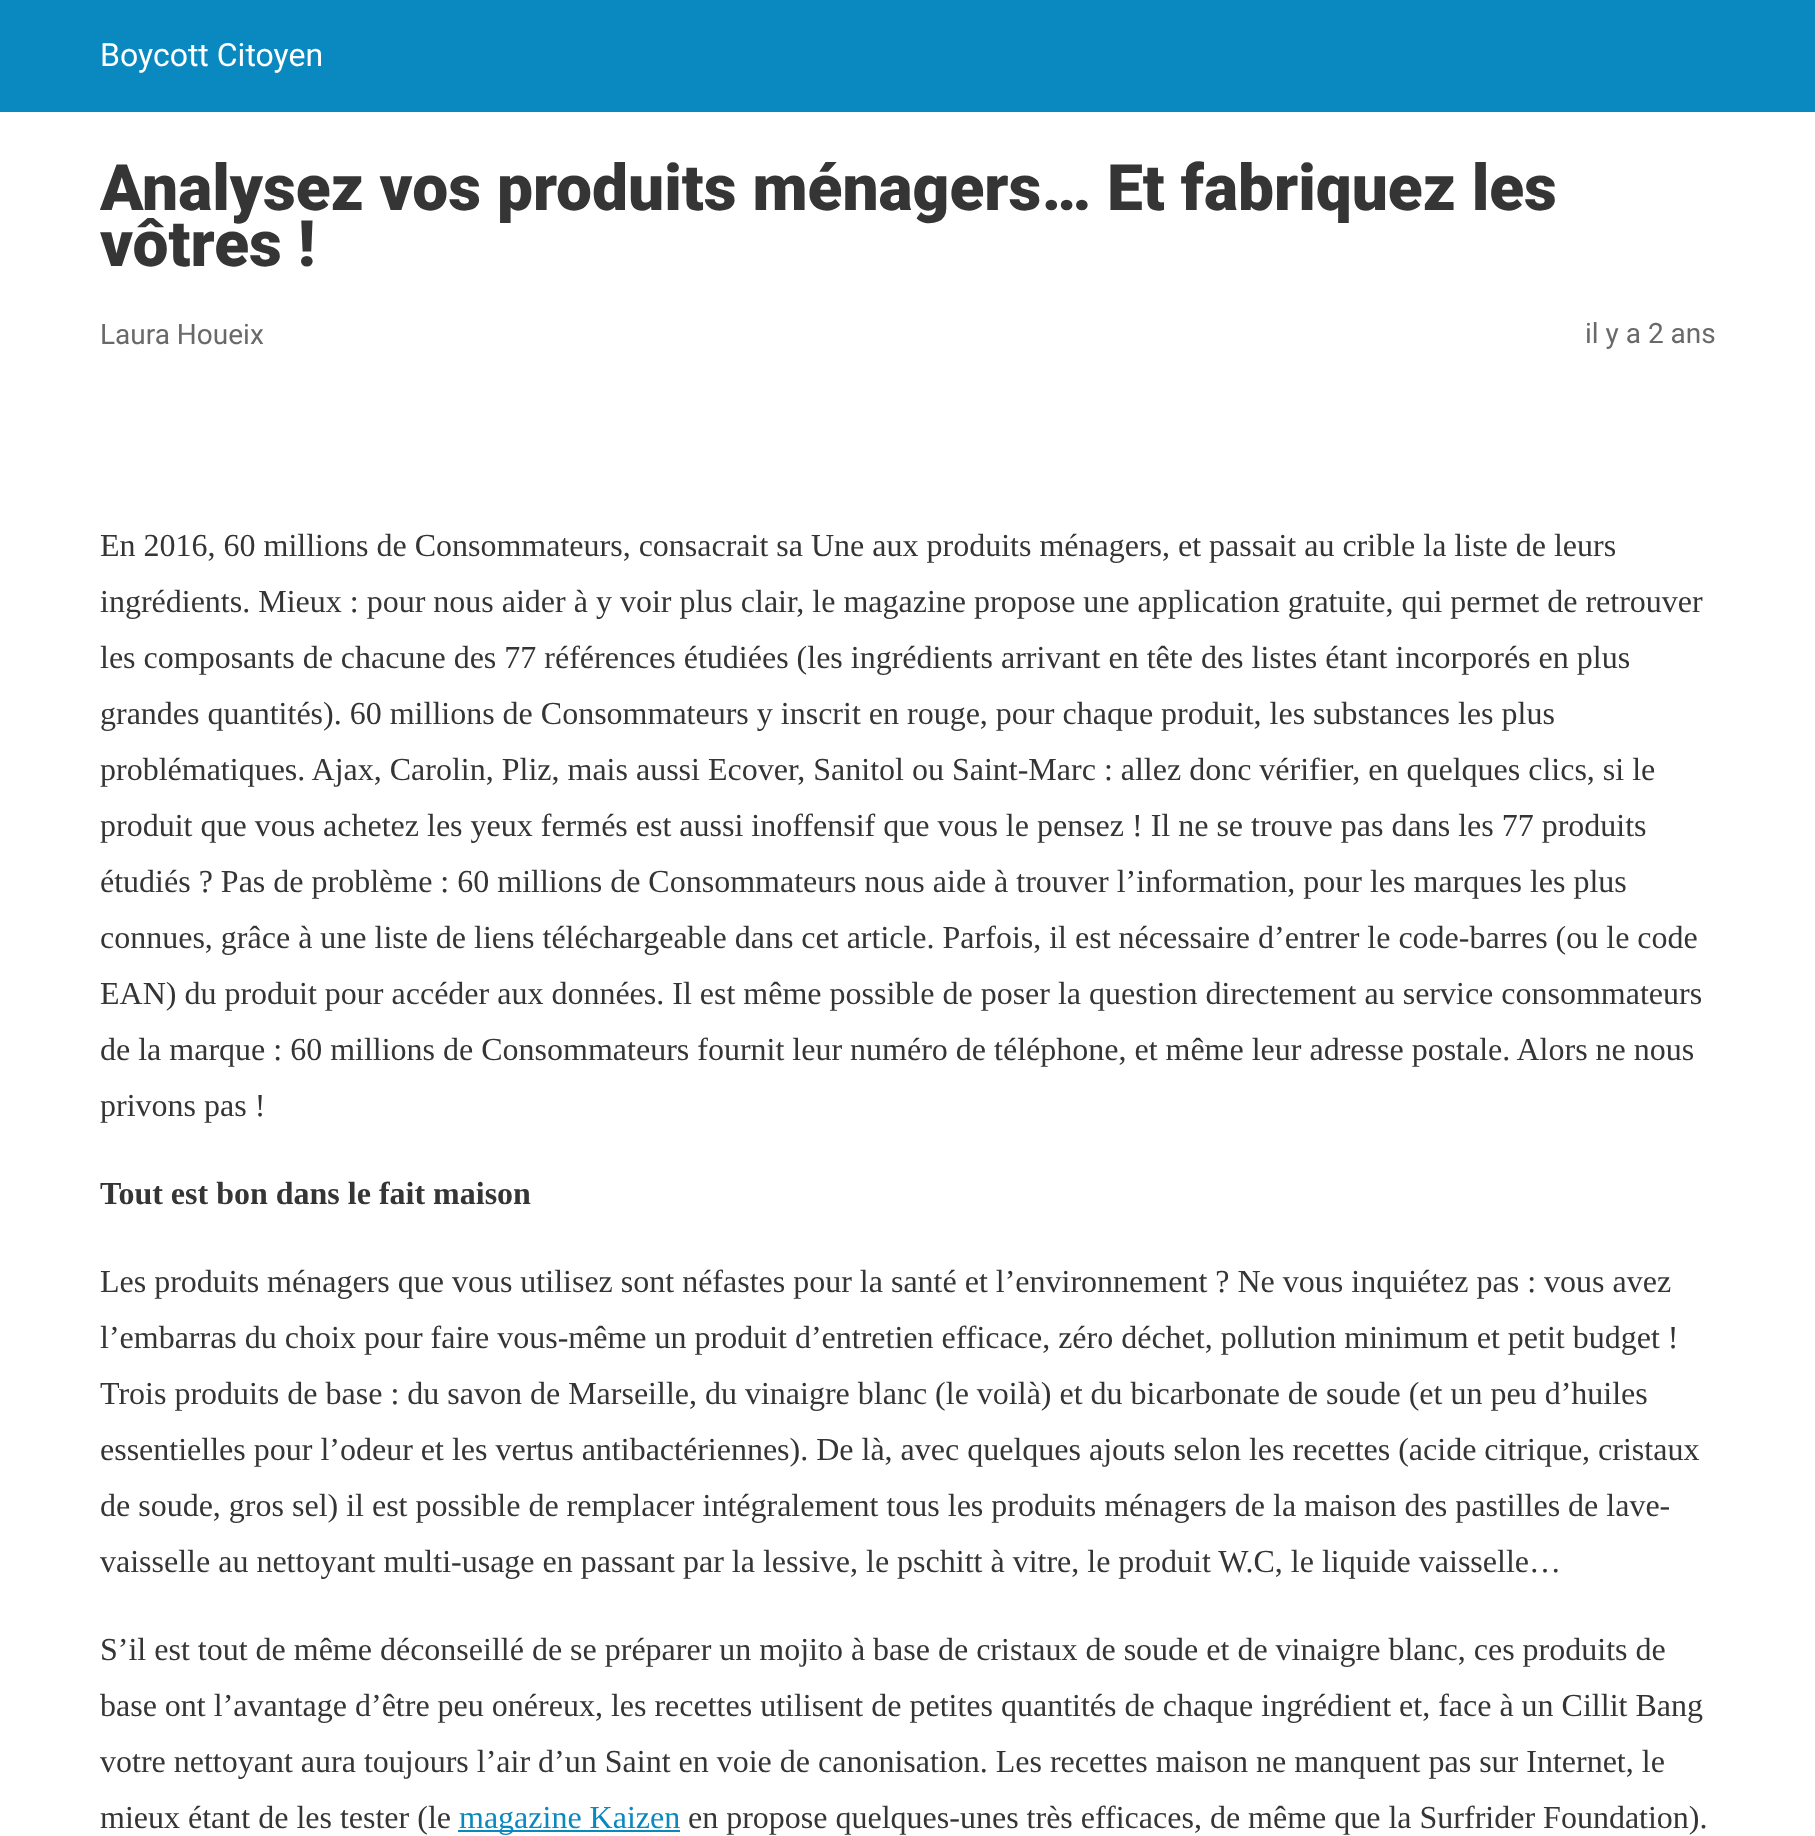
<?xml version="1.0" encoding="UTF-8"?>
<svg xmlns="http://www.w3.org/2000/svg" xmlns:xlink="http://www.w3.org/1999/xlink" width="1815" height="1836">
  <rect width="100%" height="100%" fill="#ffffff" />
  <rect width="1815" height="112" fill="#0a89c0" />
  <rect x="458" y="1830" width="222" height="2" fill="#0a89c0" />
  <text x="100" y="66" style="font-family: Roboto; font-size: 32px; fill: #ffffff">Boycott Citoyen</text>
  <text x="100" y="210" style="font-family: Roboto; font-size: 64px; font-weight: 900; fill: #353535">Analysez vos produits ménagers… Et fabriquez les</text>
  <text x="100" y="266" style="font-family: Roboto; font-size: 64px; font-weight: 900; fill: #353535">vôtres !</text>
  <text x="100" y="344" style="font-family: Roboto; font-size: 28px; fill: #696969">Laura Houeix</text>
  <text x="1585" y="343" style="font-family: Roboto; font-size: 28px; fill: #696969">il y a 2 ans</text>
  <text x="100" y="556" style="font-family: Liberation Serif; font-size: 32px; fill: #353535">En 2016, 60 millions de Consommateurs, consacrait sa Une aux produits ménagers, et passait au crible la liste de leurs</text>
  <text x="100" y="612" style="font-family: Liberation Serif; font-size: 32px; fill: #353535">ingrédients. Mieux : pour nous aider à y voir plus clair, le magazine propose une application gratuite, qui permet de retrouver</text>
  <text x="100" y="668" style="font-family: Liberation Serif; font-size: 32px; fill: #353535">les composants de chacune des 77 références étudiées (les ingrédients arrivant en tête des listes étant incorporés en plus</text>
  <text x="100" y="724" style="font-family: Liberation Serif; font-size: 32px; fill: #353535">grandes quantités). 60 millions de Consommateurs y inscrit en rouge, pour chaque produit, les substances les plus</text>
  <text x="100" y="780" style="font-family: Liberation Serif; font-size: 32px; fill: #353535">problématiques. Ajax, Carolin, Pliz, mais aussi Ecover, Sanitol ou Saint-Marc : allez donc vérifier, en quelques clics, si le</text>
  <text x="100" y="836" style="font-family: Liberation Serif; font-size: 32px; fill: #353535">produit que vous achetez les yeux fermés est aussi inoffensif que vous le pensez ! Il ne se trouve pas dans les 77 produits</text>
  <text x="100" y="892" style="font-family: Liberation Serif; font-size: 32px; fill: #353535">étudiés ? Pas de problème : 60 millions de Consommateurs nous aide à trouver l’information, pour les marques les plus</text>
  <text x="100" y="948" style="font-family: Liberation Serif; font-size: 32px; fill: #353535">connues, grâce à une liste de liens téléchargeable dans cet article. Parfois, il est nécessaire d’entrer le code-barres (ou le code</text>
  <text x="100" y="1004" style="font-family: Liberation Serif; font-size: 32px; fill: #353535">EAN) du produit pour accéder aux données. Il est même possible de poser la question directement au service consommateurs</text>
  <text x="100" y="1060" style="font-family: Liberation Serif; font-size: 32px; fill: #353535">de la marque : 60 millions de Consommateurs fournit leur numéro de téléphone, et même leur adresse postale. Alors ne nous</text>
  <text x="100" y="1116" style="font-family: Liberation Serif; font-size: 32px; fill: #353535">privons pas !</text>
  <text x="100" y="1204" style="font-family: Liberation Serif; font-size: 32px; font-weight: bold; fill: #353535">Tout est bon dans le fait maison</text>
  <text x="100" y="1292" style="font-family: Liberation Serif; font-size: 32px; fill: #353535">Les produits ménagers que vous utilisez sont néfastes pour la santé et l’environnement ? Ne vous inquiétez pas : vous avez</text>
  <text x="100" y="1348" style="font-family: Liberation Serif; font-size: 32px; fill: #353535">l’embarras du choix pour faire vous-même un produit d’entretien efficace, zéro déchet, pollution minimum et petit budget !</text>
  <text x="100" y="1404" style="font-family: Liberation Serif; font-size: 32px; fill: #353535">Trois produits de base : du savon de Marseille, du vinaigre blanc (le voilà) et du bicarbonate de soude (et un peu d’huiles</text>
  <text x="100" y="1460" style="font-family: Liberation Serif; font-size: 32px; fill: #353535">essentielles pour l’odeur et les vertus antibactériennes). De là, avec quelques ajouts selon les recettes (acide citrique, cristaux</text>
  <text x="100" y="1516" style="font-family: Liberation Serif; font-size: 32px; fill: #353535">de soude, gros sel) il est possible de remplacer intégralement tous les produits ménagers de la maison des pastilles de lave-</text>
  <text x="100" y="1572" style="font-family: Liberation Serif; font-size: 32px; fill: #353535">vaisselle au nettoyant multi-usage en passant par la lessive, le pschitt à vitre, le produit W.C, le liquide vaisselle…</text>
  <text x="100" y="1660" style="font-family: Liberation Serif; font-size: 32px; fill: #353535">S’il est tout de même déconseillé de se préparer un mojito à base de cristaux de soude et de vinaigre blanc, ces produits de</text>
  <text x="100" y="1716" style="font-family: Liberation Serif; font-size: 32px; fill: #353535">base ont l’avantage d’être peu onéreux, les recettes utilisent de petites quantités de chaque ingrédient et, face à un Cillit Bang</text>
  <text x="100" y="1772" style="font-family: Liberation Serif; font-size: 32px; fill: #353535">votre nettoyant aura toujours l’air d’un Saint en voie de canonisation. Les recettes maison ne manquent pas sur Internet, le</text>
  <text x="100" y="1828" style="font-family: Liberation Serif; font-size: 32px; fill: #353535">mieux étant de les tester (le</text>
  <text x="459" y="1828" style="font-family: Liberation Serif; font-size: 32px; fill: #0a89c0">magazine Kaizen</text>
  <text x="688" y="1828" style="font-family: Liberation Serif; font-size: 32px; fill: #353535">en propose quelques-unes très efficaces, de même que la Surfrider Foundation).</text>
</svg>
